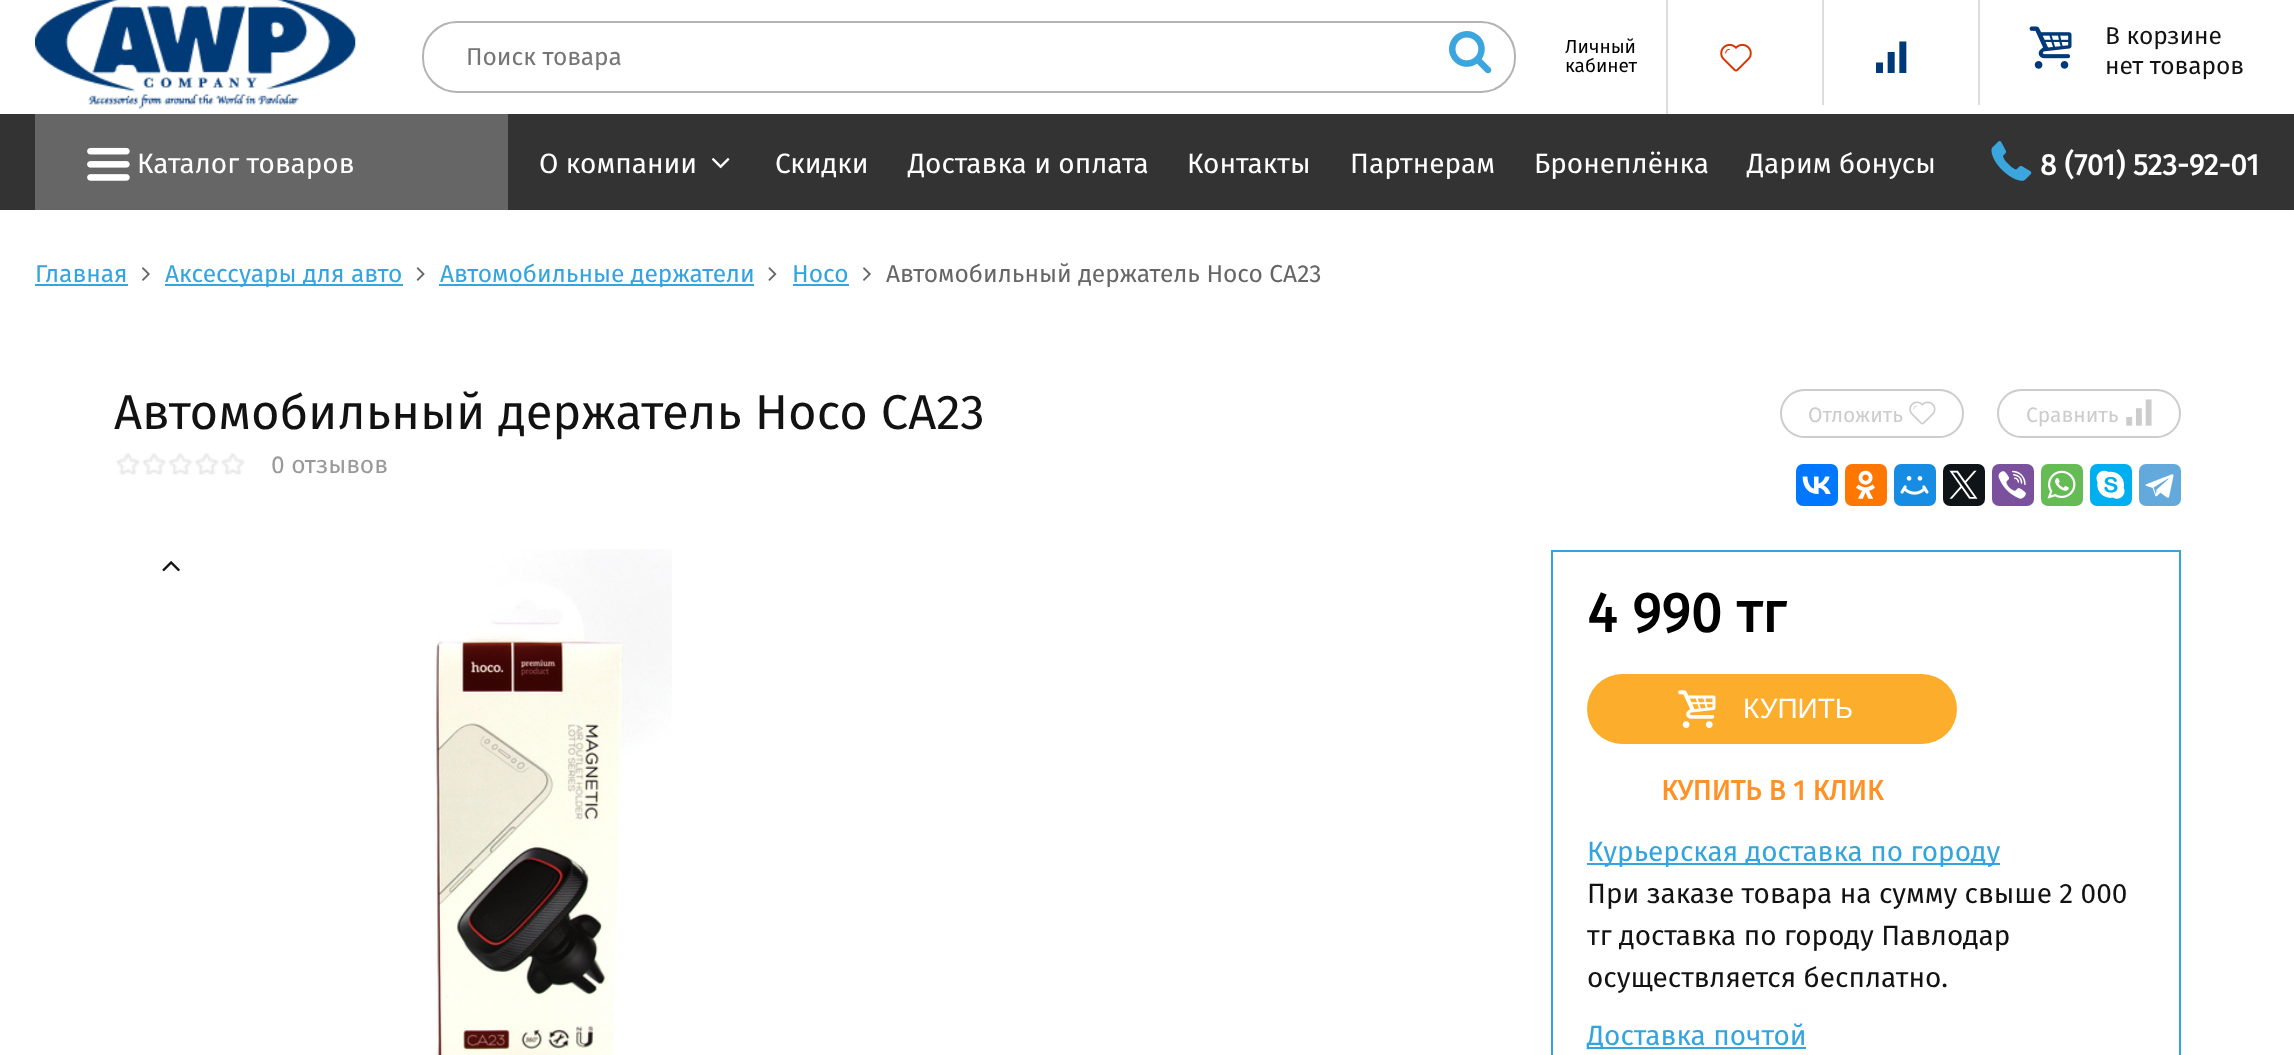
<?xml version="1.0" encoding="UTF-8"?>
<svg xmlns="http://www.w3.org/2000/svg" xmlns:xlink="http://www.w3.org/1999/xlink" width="2294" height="1055">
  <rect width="100%" height="100%" fill="#ffffff" />
  <image x="35" y="0" width="321" height="109" xlink:href="image1.png" />
  <rect x="423" y="22" width="1092" height="70" rx="34" fill="none" stroke="#b3b3b3" stroke-width="2" />
  <image x="1449" y="31" width="43" height="43" xlink:href="image2.png" />
  <rect x="1666" width="2" height="114" fill="#dddddd" />
  <rect x="1822" width="2" height="105" fill="#dddddd" />
  <image x="1720" y="43" width="32" height="29" xlink:href="image3.png" />
  <rect x="1978" width="2" height="105" fill="#dddddd" />
  <image x="1876" y="41" width="31" height="32" xlink:href="image4.png" />
  <image x="2029" y="26" width="43" height="43" xlink:href="image5.png" />
  <rect y="114" width="2294" height="96" fill="#333333" />
  <rect x="35" y="114" width="473" height="96" fill="#666666" />
  <image x="87" y="147" width="43" height="34" xlink:href="image6.png" />
  <image x="711" y="158" width="19" height="11" xlink:href="image7.png" />
  <image x="1991" y="141" width="41" height="40" xlink:href="image8.png" />
  <rect x="35" y="284" width="93" height="2" fill="#33a5df" />
  <image x="142" y="267" width="8" height="14" xlink:href="image9.png" />
  <rect x="165" y="284" width="238" height="2" fill="#33a5df" />
  <image x="416" y="267" width="9" height="14" xlink:href="image10.png" />
  <rect x="439" y="284" width="315" height="2" fill="#33a5df" />
  <image x="768" y="267" width="9" height="14" xlink:href="image11.png" />
  <rect x="793" y="284" width="56" height="2" fill="#33a5df" />
  <image x="863" y="267" width="8" height="14" xlink:href="image9.png" />
  <image x="116" y="453" width="129" height="22" xlink:href="image12.png" />
  <rect x="1781" y="390" width="182" height="47" rx="23.5" fill="none" stroke="#cccccc" stroke-width="2" />
  <image x="1909" y="401" width="27" height="24" xlink:href="image13.png" />
  <rect x="1998" y="390" width="182" height="47" rx="23.5" fill="none" stroke="#cccccc" stroke-width="2" />
  <image x="2126" y="399" width="26" height="27" xlink:href="image14.png" />
  <rect x="1796" y="464" width="42" height="42" rx="7" fill="#0077ff" />
  <image x="1802" y="476" width="29" height="18" xlink:href="image15.png" />
  <rect x="1845" y="464" width="42" height="42" rx="7" fill="#ff7700" />
  <image x="1856" y="470" width="19" height="29" xlink:href="image16.png" />
  <rect x="1894" y="464" width="42" height="42" rx="7" fill="#168de2" />
  <image x="1900" y="476" width="29" height="19" xlink:href="image17.png" />
  <rect x="1943" y="464" width="42" height="42" rx="7" fill="#0f1419" />
  <image x="1949" y="470" width="29" height="29" xlink:href="image18.png" />
  <rect x="1992" y="464" width="42" height="42" rx="7" fill="#7b519d" />
  <image x="1998" y="470" width="28" height="29" xlink:href="image19.png" />
  <rect x="2041" y="464" width="42" height="42" rx="7" fill="#65bc54" />
  <image x="2047" y="470" width="29" height="29" xlink:href="image20.png" />
  <rect x="2090" y="464" width="42" height="42" rx="7" fill="#00aff0" />
  <image x="2096" y="470" width="29" height="29" xlink:href="image21.png" />
  <rect x="2139" y="464" width="42" height="42" rx="7" fill="#64a9dc" />
  <image x="2145" y="474" width="29" height="24" xlink:href="image22.png" />
  <image x="162" y="561" width="18" height="11" xlink:href="image23.png" />
  <image x="431" y="549" width="241" height="506" xlink:href="image24.png" />
  <rect x="1552" y="551" width="628" height="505" fill="none" stroke="#33a4df" stroke-width="2" />
  <rect x="1587" y="674" width="370" height="70" rx="35" fill="#fcad2c" />
  <image x="1678" y="690" width="38" height="38" xlink:href="image25.png" />
  <rect x="1587" y="863" width="413" height="2" fill="#33a4df" />
  <rect x="1587" y="1047" width="219" height="2" fill="#33a4df" />
  <text x="466" y="65" style="font-family: Fira Sans; font-size: 24.5px; fill: #757575">Поиск товара</text>
  <text x="1565" y="53" style="font-family: Fira Sans; font-size: 19px; fill: #000000">Личный</text>
  <text x="1565" y="72" style="font-family: Fira Sans; font-size: 19px; fill: #000000">кабинет</text>
  <text x="2105" y="44" style="font-family: Fira Sans; font-size: 24.5px; fill: #121212">В корзине</text>
  <text x="2105" y="74" style="font-family: Fira Sans; font-size: 24.5px; fill: #121212">нет товаров</text>
  <text x="137" y="173" style="font-family: Fira Sans; font-size: 28px; fill: #ffffff">Каталог товаров</text>
  <text x="539" y="173" style="font-family: Fira Sans; font-size: 28px; fill: #ffffff">О компании</text>
  <text x="775" y="173" style="font-family: Fira Sans; font-size: 28px; fill: #ffffff">Скидки</text>
  <text x="908" y="173" style="font-family: Fira Sans; font-size: 28px; fill: #ffffff">Доставка и оплата</text>
  <text x="1187" y="173" style="font-family: Fira Sans; font-size: 28px; fill: #ffffff">Контакты</text>
  <text x="1350" y="173" style="font-family: Fira Sans; font-size: 28px; fill: #ffffff">Партнерам</text>
  <text x="1534" y="173" style="font-family: Fira Sans; font-size: 28px; fill: #ffffff">Бронеплёнка</text>
  <text x="1747" y="173" style="font-family: Fira Sans; font-size: 28px; fill: #ffffff">Дарим бонусы</text>
  <text x="2040" y="175" style="font-family: Fira Sans; font-size: 29.75px; font-weight: bold; fill: #ffffff">8 (701) 523-92-01</text>
  <text x="35" y="282" style="font-family: Fira Sans; font-size: 24.5px; fill: #33a4df">Главная</text>
  <text x="165" y="282" style="font-family: Fira Sans; font-size: 24.5px; fill: #33a4df">Аксессуары для авто</text>
  <text x="440" y="282" style="font-family: Fira Sans; font-size: 24.5px; fill: #33a4df">Автомобильные держатели</text>
  <text x="792" y="282" style="font-family: Fira Sans; font-size: 24.5px; fill: #33a4df">Hoco</text>
  <text x="886" y="282" style="font-family: Fira Sans; font-size: 24.5px; fill: #666666">Автомобильный держатель Hoco CA23</text>
  <text x="114" y="429" style="font-family: Fira Sans; font-size: 49px; fill: #121212">Автомобильный держатель Hoco CA23</text>
  <text x="271" y="473" style="font-family: Fira Sans; font-size: 24.5px; fill: #999999">0 отзывов</text>
  <text x="1808" y="422" style="font-family: Fira Sans; font-size: 21px; fill: #cccccc">Отложить</text>
  <text x="2026" y="422" style="font-family: Fira Sans; font-size: 21px; fill: #cccccc">Сравнить</text>
  <text x="1587" y="632" style="font-family: Fira Sans; font-size: 56px; font-weight: bold; fill: #000000">4 990 тг</text>
  <text x="1743" y="718" style="font-family: Liberation Sans; font-size: 28px; fill: #ffffff">КУПИТЬ</text>
  <text x="1661" y="800" style="font-family: Fira Sans; font-size: 28px; font-weight: bold; fill: #ff9226">КУПИТЬ В 1 КЛИК</text>
  <text x="1587" y="861" style="font-family: Fira Sans; font-size: 28px; fill: #33a4df">Курьерская доставка по городу</text>
  <text x="1587" y="903" style="font-family: Fira Sans; font-size: 28px; fill: #121212">При заказе товара на сумму свыше 2 000</text>
  <text x="1587" y="945" style="font-family: Fira Sans; font-size: 28px; fill: #121212">тг доставка по городу Павлодар</text>
  <text x="1587" y="987" style="font-family: Fira Sans; font-size: 28px; fill: #121212">осуществляется бесплатно.</text>
  <text x="1587" y="1045" style="font-family: Fira Sans; font-size: 28px; fill: #33a4df">Доставка почтой</text>
</svg>
